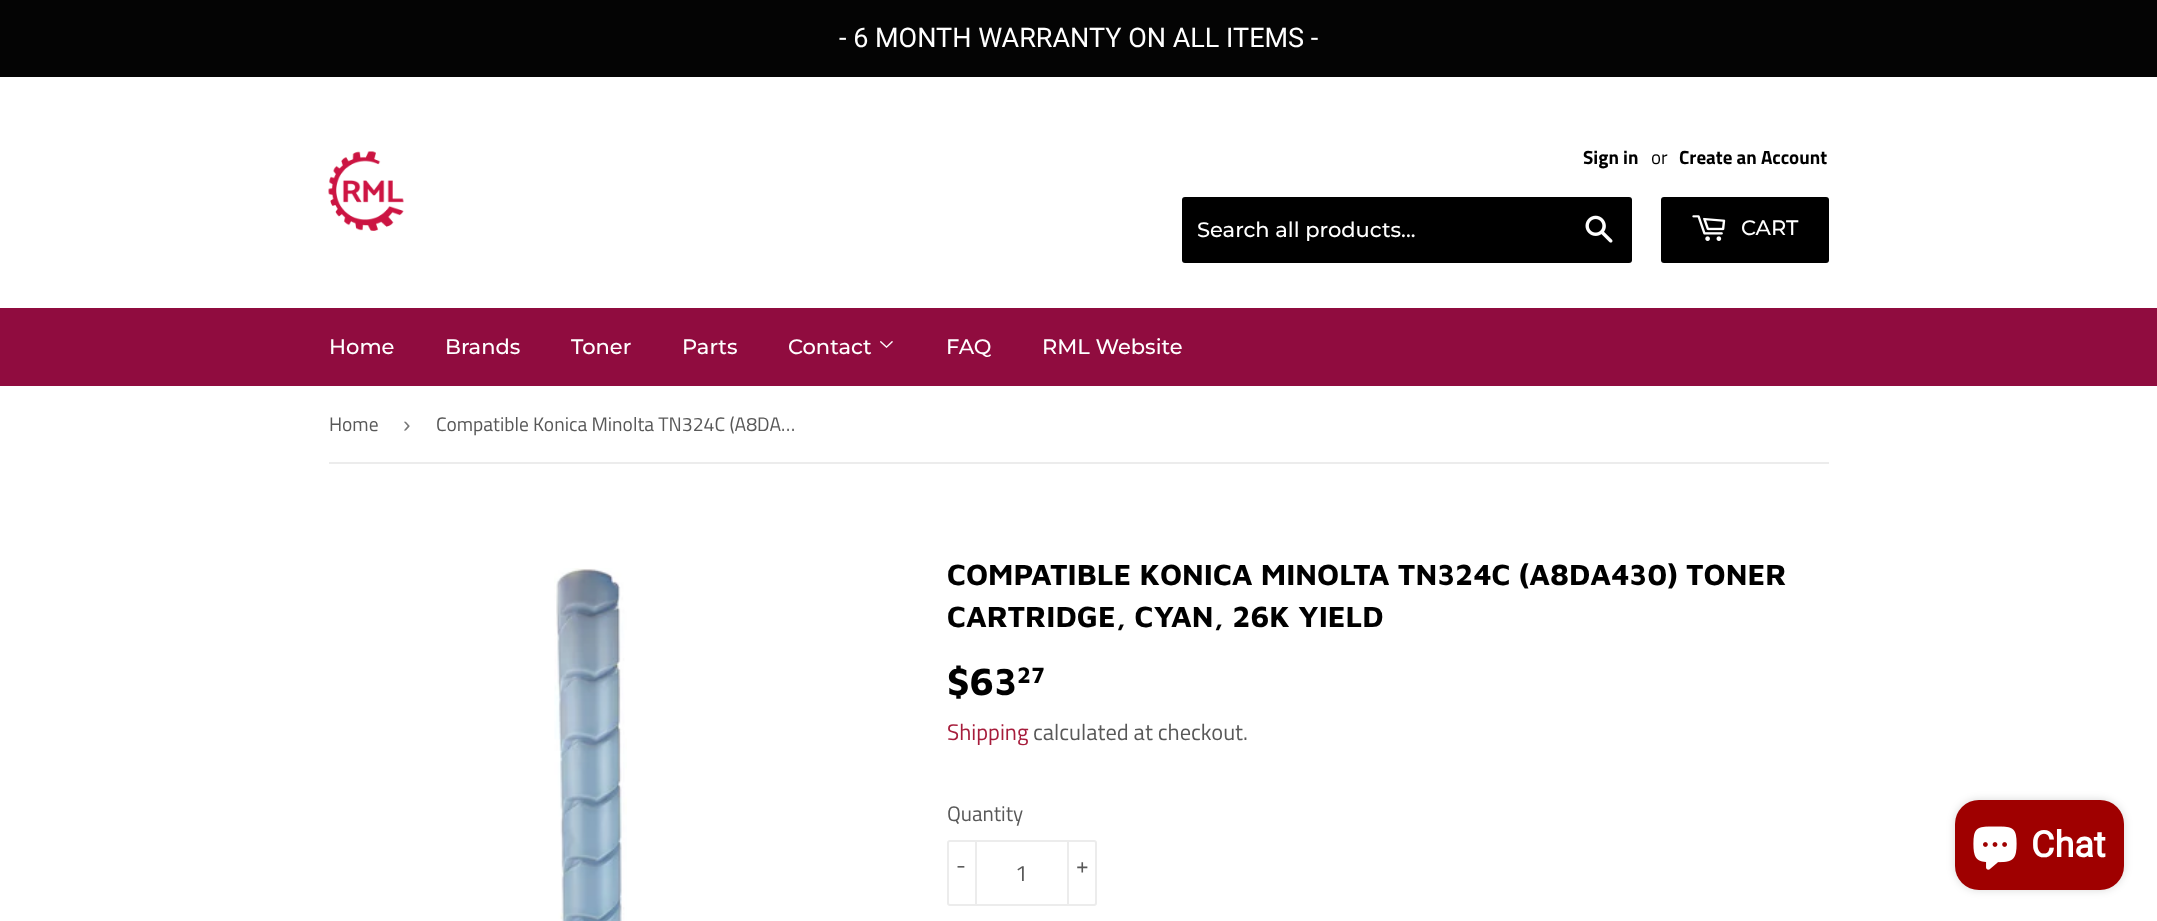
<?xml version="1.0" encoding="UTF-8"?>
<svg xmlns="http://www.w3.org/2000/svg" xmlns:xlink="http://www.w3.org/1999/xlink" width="2157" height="921">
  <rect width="100%" height="100%" fill="#ffffff" />
  <rect width="2157" height="77" fill="#040404" />
  <image x="328" y="151" width="76" height="80" xlink:href="image1.png" />
  <rect x="1182" y="197" width="450" height="66" rx="3" fill="#000000" />
  <image x="1585" y="215" width="28" height="28" xlink:href="image2.png" />
  <rect x="1661" y="197" width="168" height="66" rx="3" fill="#000000" />
  <image x="1692" y="215" width="34" height="26" xlink:href="image3.png" />
  <rect y="308" width="2157" height="78" fill="#900c3f" />
  <image x="880" y="341" width="13" height="7" xlink:href="image4.png" />
  <rect x="329" y="462" width="1500" height="2" fill="#ececec" />
  <image x="554" y="568" width="73" height="353" xlink:href="image5.png" />
  <rect x="948" y="841" width="148" height="64" rx="2" fill="none" stroke="#ececec" stroke-width="2" />
  <rect x="975" y="840" width="2" height="66" fill="#ececec" />
  <rect x="1067" y="840" width="2" height="66" fill="#ececec" />
  <rect x="1955" y="800" width="169" height="90" rx="24" fill="#000000" fill-opacity="0.15" filter="blur(4px)" />
  <rect x="1955" y="800" width="169" height="90" rx="24" fill="#9f0000" />
  <image x="1973" y="826" width="44" height="44" xlink:href="image6.png" />
  <text x="839" y="47" style="font-family: Roboto; font-size: 27px; fill: #ffffff">- 6 MONTH WARRANTY ON ALL ITEMS -</text>
  <text x="1583" y="164" style="font-family: Titillium Web; font-size: 19px; font-weight: bold; fill: #000000">Sign in</text>
  <text x="1651" y="164" style="font-family: Titillium Web; font-size: 19px; fill: #000000">or</text>
  <text x="1679" y="164" style="font-family: Titillium Web; font-size: 19px; font-weight: bold; fill: #000000">Create an Account</text>
  <text x="1197" y="237" style="font-family: Montserrat; font-size: 21px; font-weight: 500; fill: #ffffff">Search all products...</text>
  <text x="1741" y="235" style="font-family: Montserrat; font-size: 21px; font-weight: 500; fill: #ffffff">CART</text>
  <text x="329" y="354" style="font-family: Montserrat; font-size: 21px; font-weight: 500; fill: #ffffff">Home</text>
  <text x="445" y="354" style="font-family: Montserrat; font-size: 21px; font-weight: 500; fill: #ffffff">Brands</text>
  <text x="571" y="354" style="font-family: Montserrat; font-size: 21px; font-weight: 500; fill: #ffffff">Toner</text>
  <text x="682" y="354" style="font-family: Montserrat; font-size: 21px; font-weight: 500; fill: #ffffff">Parts</text>
  <text x="788" y="354" style="font-family: Montserrat; font-size: 21px; font-weight: 500; fill: #ffffff">Contact</text>
  <text x="946" y="354" style="font-family: Montserrat; font-size: 21px; font-weight: 500; fill: #ffffff">FAQ</text>
  <text x="1042" y="354" style="font-family: Montserrat; font-size: 21px; font-weight: 500; fill: #ffffff">RML Website</text>
  <text x="329" y="431" style="font-family: Titillium Web; font-size: 19.5px; fill: #585858">Home</text>
  <text x="403" y="432" style="font-family: Liberation Sans; font-size: 22.5px; fill: #767676">›</text>
  <text x="436" y="431" style="font-family: Titillium Web; font-size: 19.5px; fill: #585858">Compatible Konica Minolta TN324C (A8DA…</text>
  <text x="947" y="585" style="font-family: Maven Pro; font-size: 30px; font-weight: bold; fill: #000000">COMPATIBLE KONICA MINOLTA TN324C (A8DA430) TONER</text>
  <text x="947" y="627" style="font-family: Maven Pro; font-size: 30px; font-weight: bold; fill: #000000">CARTRIDGE, CYAN, 26K YIELD</text>
  <text x="947" y="695" style="font-family: Maven Pro; font-size: 39px; font-weight: bold; fill: #000000">$63</text>
  <text x="1017" y="683" style="font-family: Maven Pro; font-size: 23px; font-weight: bold; fill: #000000">27</text>
  <text x="947" y="740" style="font-family: Titillium Web; font-size: 22.5px; fill: #a61c3b">Shipping</text>
  <text x="1033" y="740" style="font-family: Titillium Web; font-size: 22.5px; fill: #585858">calculated at checkout.</text>
  <text x="947" y="821" style="font-family: Titillium Web; font-size: 21px; fill: #585858">Quantity</text>
  <text x="956" y="873" style="font-family: Titillium Web; font-size: 22.5px; fill: #585858">-</text>
  <text x="1015" y="881" style="font-family: Titillium Web; font-size: 22.5px; fill: #585858">1</text>
  <text x="1076" y="873" style="font-family: Titillium Web; font-size: 22.5px; fill: #585858">+</text>
  <text x="2031" y="857" style="font-family: Roboto; font-size: 36px; font-weight: bold; fill: #ffffff">Chat</text>
</svg>
